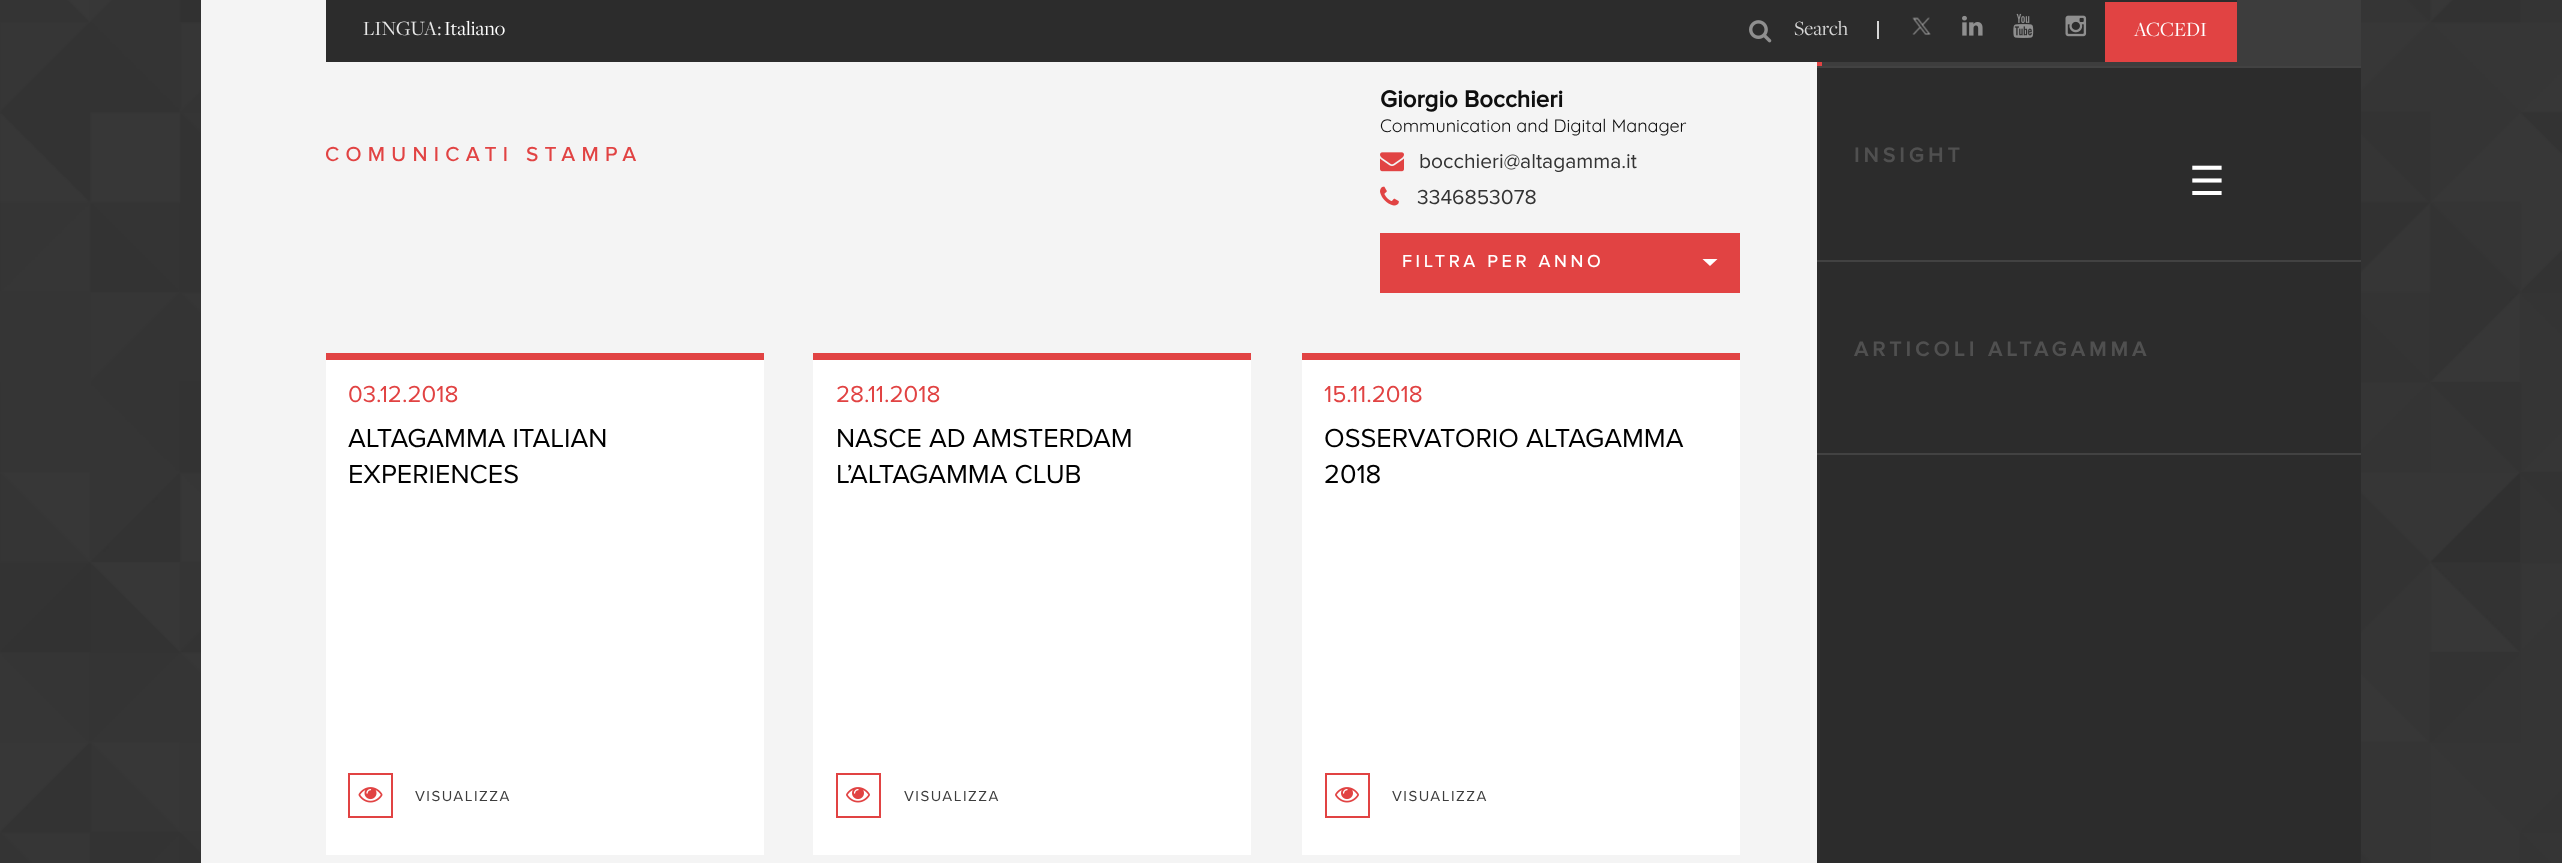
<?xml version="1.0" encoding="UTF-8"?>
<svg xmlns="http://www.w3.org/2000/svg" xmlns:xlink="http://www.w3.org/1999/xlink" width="2562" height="863">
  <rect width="100%" height="100%" fill="#ffffff" />
  <image x="0" y="0" width="2562" height="863" xlink:href="image1.png" />
  <rect x="201" width="1616" height="863" fill="#f4f4f4" />
  <rect x="1822" width="539" height="66" fill="#3d3d3d" />
  <rect x="326" width="1911" height="62" fill="#2c2c2c" />
  <image x="1749" y="20" width="23" height="23" xlink:href="image2.png" />
  <rect x="1877" y="21" width="2" height="18" fill="#d7d7d7" />
  <image x="1912" y="17" width="19" height="18" xlink:href="image3.png" />
  <image x="1962" y="15" width="21" height="21" xlink:href="image4.png" />
  <image x="2013" y="13" width="21" height="25" xlink:href="image5.png" />
  <image x="2065" y="15" width="22" height="22" xlink:href="image6.png" />
  <rect x="2105" y="2" width="132" height="60" fill="#e14343" />
  <image x="1380" y="152" width="24" height="20" xlink:href="image7.png" />
  <image x="1380" y="186" width="19" height="20" xlink:href="image8.png" />
  <rect x="1817" y="68" width="544" height="795" fill="#2c2c2c" />
  <rect x="1817" y="66" width="544" height="2" fill="#424242" />
  <rect x="1817" y="62" width="5" height="4" fill="#e14343" />
  <rect x="1817" y="260" width="544" height="2" fill="#424242" />
  <rect x="1817" y="453" width="544" height="2" fill="#424242" />
  <rect x="1380" y="233" width="360" height="60" fill="#e14343" />
  <path d="M 1702.5 259 h 15 l -7.5 7 z" fill="#ffffff" />
  <rect x="326" y="360" width="438" height="495" fill="#ffffff" />
  <rect x="326" y="353" width="438" height="7" fill="#e14343" />
  <rect x="349" y="774" width="43" height="43" fill="none" stroke="#e14343" stroke-width="2" />
  <image x="358" y="787" width="25" height="16" xlink:href="image9.png" />
  <rect x="813" y="360" width="438" height="495" fill="#ffffff" />
  <rect x="813" y="353" width="438" height="7" fill="#e14343" />
  <rect x="837" y="774" width="43" height="43" fill="none" stroke="#e14343" stroke-width="2" />
  <image x="846" y="787" width="24" height="16" xlink:href="image10.png" />
  <rect x="1302" y="360" width="438" height="495" fill="#ffffff" />
  <rect x="1302" y="353" width="438" height="7" fill="#e14343" />
  <rect x="1326" y="774" width="43" height="43" fill="none" stroke="#e14343" stroke-width="2" />
  <image x="1335" y="787" width="24" height="16" xlink:href="image10.png" />
  <text x="363" y="35" style="font-family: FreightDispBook; font-size: 21px; fill: #e8e8e8">LINGUA:</text>
  <text x="444" y="35" style="font-family: FreightDispBook; font-size: 21px; fill: #ffffff">Italiano</text>
  <text x="1794" y="35" style="font-family: FreightDispBook; font-size: 21px; fill: #d7d7d7">Search</text>
  <text x="2134" y="36" style="font-family: FreightDispBook; font-size: 21px; fill: #ffffff">ACCEDI</text>
  <text x="325" y="161" style="font-family: 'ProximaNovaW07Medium'; font-size: 21px; font-weight: 500; letter-spacing: 6.25px; fill: #e14343">COMUNICATI STAMPA</text>
  <text x="1380" y="107" style="font-family: 'ProximaNovaW07Medium'; font-size: 24px; font-weight: bold; fill: #0f0f0f">Giorgio Bocchieri</text>
  <text x="1380" y="132" style="font-family: Quicksand; font-size: 18px; fill: #0f0f0f">Communication and Digital Manager</text>
  <text x="1419" y="168" style="font-family: 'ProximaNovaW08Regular'; font-size: 21px; fill: #333333">bocchieri@altagamma.it</text>
  <text x="1417" y="204" style="font-family: 'ProximaNovaW08Regular'; font-size: 21px; fill: #333333">3346853078</text>
  <text x="1854" y="162" style="font-family: 'ProximaNovaW07Medium'; font-size: 21px; font-weight: bold; letter-spacing: 4.25px; fill: #505050">INSIGHT</text>
  <text x="1854" y="356" style="font-family: 'ProximaNovaW07Medium'; font-size: 21px; font-weight: bold; letter-spacing: 4.25px; fill: #505050">ARTICOLI ALTAGAMMA</text>
  <text x="1402" y="267" style="font-family: 'ProximaNovaW07Medium'; font-size: 18px; font-weight: 500; letter-spacing: 3.6px; fill: #ffffff">FILTRA PER ANNO</text>
  <text x="348" y="402" style="font-family: 'ProximaNovaW08Regular'; font-size: 24px; fill: #e14343">03.12.2018</text>
  <text x="348" y="447" style="font-family: 'ProximaNovaW08Regular'; font-size: 27px; fill: #000000">ALTAGAMMA ITALIAN</text>
  <text x="348" y="483" style="font-family: 'ProximaNovaW08Regular'; font-size: 27px; fill: #000000">EXPERIENCES</text>
  <text x="415" y="801" style="font-family: 'ProximaNovaW08Regular'; font-size: 15px; letter-spacing: 1.5px; fill: #3d3d3d">VISUALIZZA</text>
  <text x="836" y="402" style="font-family: 'ProximaNovaW08Regular'; font-size: 24px; fill: #e14343">28.11.2018</text>
  <text x="836" y="447" style="font-family: 'ProximaNovaW08Regular'; font-size: 27px; fill: #000000">NASCE AD AMSTERDAM</text>
  <text x="836" y="483" style="font-family: 'ProximaNovaW08Regular'; font-size: 27px; fill: #000000">L’ALTAGAMMA CLUB</text>
  <text x="904" y="801" style="font-family: 'ProximaNovaW08Regular'; font-size: 15px; letter-spacing: 1.5px; fill: #3d3d3d">VISUALIZZA</text>
  <text x="1324" y="402" style="font-family: 'ProximaNovaW08Regular'; font-size: 24px; fill: #e14343">15.11.2018</text>
  <text x="1324" y="447" style="font-family: 'ProximaNovaW08Regular'; font-size: 27px; fill: #000000">OSSERVATORIO ALTAGAMMA</text>
  <text x="1324" y="483" style="font-family: 'ProximaNovaW08Regular'; font-size: 27px; fill: #000000">2018</text>
  <text x="1392" y="801" style="font-family: 'ProximaNovaW08Regular'; font-size: 15px; letter-spacing: 1.5px; fill: #3d3d3d">VISUALIZZA</text>
  <text x="2189" y="195" style="font-family: DejaVu Sans; font-size: 40px; fill: #ffffff">☰</text>
</svg>
